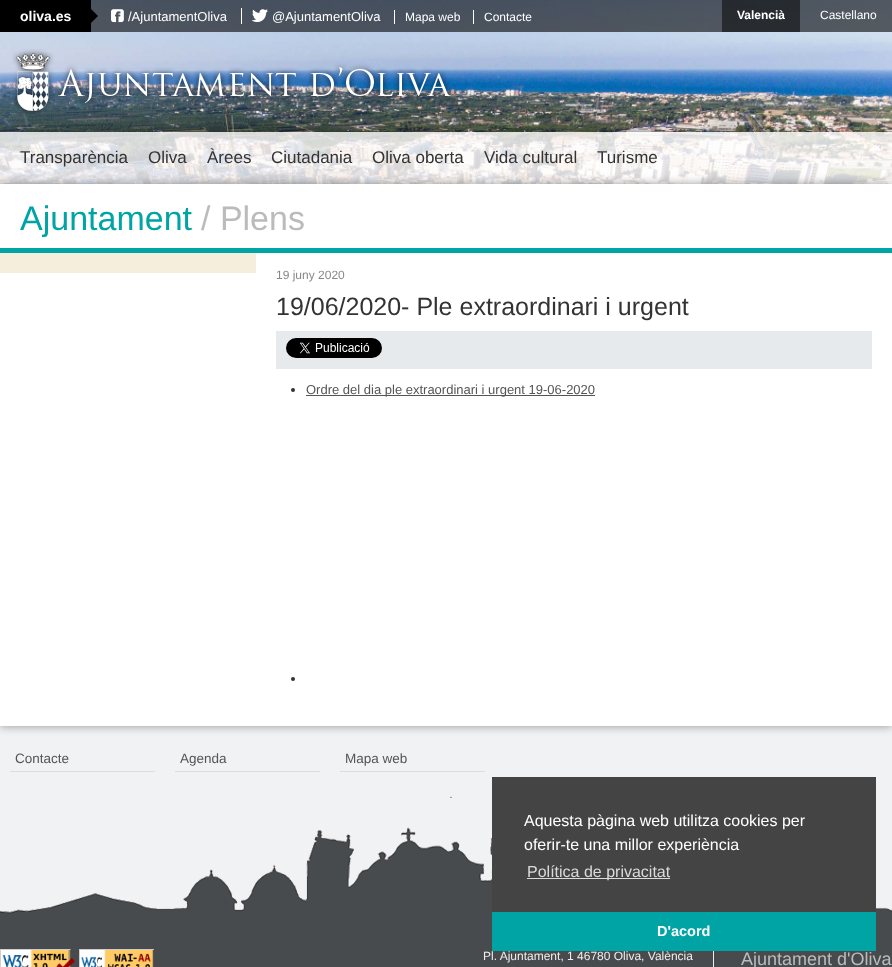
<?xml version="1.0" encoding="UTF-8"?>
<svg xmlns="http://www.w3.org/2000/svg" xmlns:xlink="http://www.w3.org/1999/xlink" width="892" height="967">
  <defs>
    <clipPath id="clip1"><rect x="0" y="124" width="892" height="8" /></clipPath>
  </defs>
  <rect width="100%" height="100%" fill="#f1f2f3" />
  <image x="0" y="0" width="892" height="184" xlink:href="image1.png" />
  <rect x="91" width="801" height="32" fill="#000000" fill-opacity="0.6" />
  <rect width="91" height="32" fill="#000000" />
  <path d="M 91 23 v -14 l 7 7 z" fill="#000000" />
  <image x="111" y="9" width="13" height="14" xlink:href="image2.png" />
  <rect x="241" y="8" width="1" height="16" fill="#ffffff" />
  <image x="252" y="9" width="16" height="14" xlink:href="image3.png" />
  <rect x="394" y="10" width="1" height="14" fill="#ffffff" />
  <rect x="473" y="10" width="1" height="14" fill="#ffffff" />
  <rect x="722" width="78" height="32" fill="#000000" fill-opacity="0.5" />
  <image x="12" y="49" width="441" height="66" xlink:href="image4.png" />
  <g clip-path="url(#clip1)">
    <rect y="132" width="892" height="52" fill="#000000" fill-opacity="0.4" filter="blur(5px)" />
  </g>
  <rect y="132" width="892" height="52" fill="#ffffff" fill-opacity="0.8" />
  <rect y="184" width="892" height="542" fill="#000000" fill-opacity="0.4" filter="blur(5px)" />
  <rect y="184" width="892" height="542" fill="#ffffff" />
  <rect y="248" width="892" height="5" fill="#01a4a4" />
  <rect y="253" width="256" height="20" fill="#f5eedc" />
  <rect x="276" y="331" width="596" height="38" fill="#e7eaec" />
  <image x="286" y="338" width="96" height="20" xlink:href="image5.png" />
  <circle cx="293" cy="390" r="2" fill="#333333" />
  <rect x="306" y="395" width="289" height="1" fill="#555555" />
  <circle cx="293" cy="679" r="2" fill="#333333" />
  <rect x="10" y="771" width="145" height="1" fill="#dddddd" />
  <rect x="175" y="771" width="145" height="1" fill="#dddddd" />
  <rect x="340" y="771" width="145" height="1" fill="#dddddd" />
  <image x="0" y="796" width="892" height="153" xlink:href="image6.png" />
  <rect x="70" y="949" width="822" height="18" fill="#484b4e" />
  <image x="0" y="949" width="75" height="18" xlink:href="image7.png" />
  <image x="79" y="949" width="75" height="18" xlink:href="image8.png" />
  <rect x="713" y="949" width="1" height="18" fill="#eeeeee" />
  <rect x="492" y="777" width="384" height="135" fill="#444444" />
  <rect x="527" y="878" width="143" height="1" fill="#dadada" />
  <rect x="492" y="912" width="384" height="39" fill="#00a4a4" />
  <text x="20" y="21" style="font-family: Liberation Sans; font-size: 14px; font-weight: bold; fill: #ffffff">oliva.es</text>
  <text x="128" y="21" style="font-family: Liberation Sans; font-size: 13px; fill: #ffffff">/AjuntamentOliva</text>
  <text x="272" y="21" style="font-family: Liberation Sans; font-size: 13px; fill: #ffffff">@AjuntamentOliva</text>
  <text x="405" y="21" style="font-family: Liberation Sans; font-size: 12px; fill: #ffffff">Mapa web</text>
  <text x="484" y="21" style="font-family: Liberation Sans; font-size: 12px; fill: #ffffff">Contacte</text>
  <text x="737" y="19" style="font-family: Liberation Sans; font-size: 12px; font-weight: bold; fill: #ffffff">Valencià</text>
  <text x="820" y="19" style="font-family: Liberation Sans; font-size: 12px; fill: #ffffff">Castellano</text>
  <text x="20" y="163" style="font-family: Liberation Sans; font-size: 17px; fill: #333333">Transparència</text>
  <text x="148" y="163" style="font-family: Liberation Sans; font-size: 17px; fill: #333333">Oliva</text>
  <text x="207" y="163" style="font-family: Liberation Sans; font-size: 17px; fill: #333333">Àrees</text>
  <text x="271" y="163" style="font-family: Liberation Sans; font-size: 17px; fill: #333333">Ciutadania</text>
  <text x="372" y="163" style="font-family: Liberation Sans; font-size: 17px; fill: #333333">Oliva oberta</text>
  <text x="484" y="163" style="font-family: Liberation Sans; font-size: 17px; fill: #333333">Vida cultural</text>
  <text x="597" y="163" style="font-family: Liberation Sans; font-size: 17px; fill: #333333">Turisme</text>
  <text x="20" y="230" style="font-family: Liberation Sans; font-size: 34px; fill: #01a4a4">Ajuntament</text>
  <text x="201" y="230" style="font-family: Liberation Sans; font-size: 34px; fill: #bbbbbb">/ Plens</text>
  <text x="276" y="279" style="font-family: Liberation Sans; font-size: 12px; fill: #888888">19 juny 2020</text>
  <text x="276" y="315" style="font-family: Liberation Sans; font-size: 25px; fill: #333333">19/06/2020- Ple extraordinari i urgent</text>
  <text x="306" y="394" style="font-family: Liberation Sans; font-size: 13px; fill: #555555">Ordre del dia ple extraordinari i urgent 19-06-2020</text>
  <text x="15" y="763" style="font-family: Liberation Sans; font-size: 13.5px; fill: #555555">Contacte</text>
  <text x="180" y="763" style="font-family: Liberation Sans; font-size: 13.5px; fill: #555555">Agenda</text>
  <text x="345" y="763" style="font-family: Liberation Sans; font-size: 13.5px; fill: #555555">Mapa web</text>
  <text x="483" y="960" style="font-family: Liberation Sans; font-size: 12px; fill: #eeeeee">Pl. Ajuntament, 1 46780 Oliva, València</text>
  <text x="741" y="965" style="font-family: Liberation Sans; font-size: 18px; fill: #bbbbbb">Ajuntament d'Oliva</text>
  <text x="524" y="826" style="font-family: Liberation Sans; font-size: 16px; fill: #ffffff">Aquesta pàgina web utilitza cookies per</text>
  <text x="524" y="850" style="font-family: Liberation Sans; font-size: 16px; fill: #ffffff">oferir-te una millor experiència</text>
  <text x="527" y="877" style="font-family: Liberation Sans; font-size: 16px; fill: #dadada">Política de privacitat</text>
  <text x="657" y="936" style="font-family: Liberation Sans; font-size: 14.5px; font-weight: bold; fill: #ffffff">D'acord</text>
</svg>
